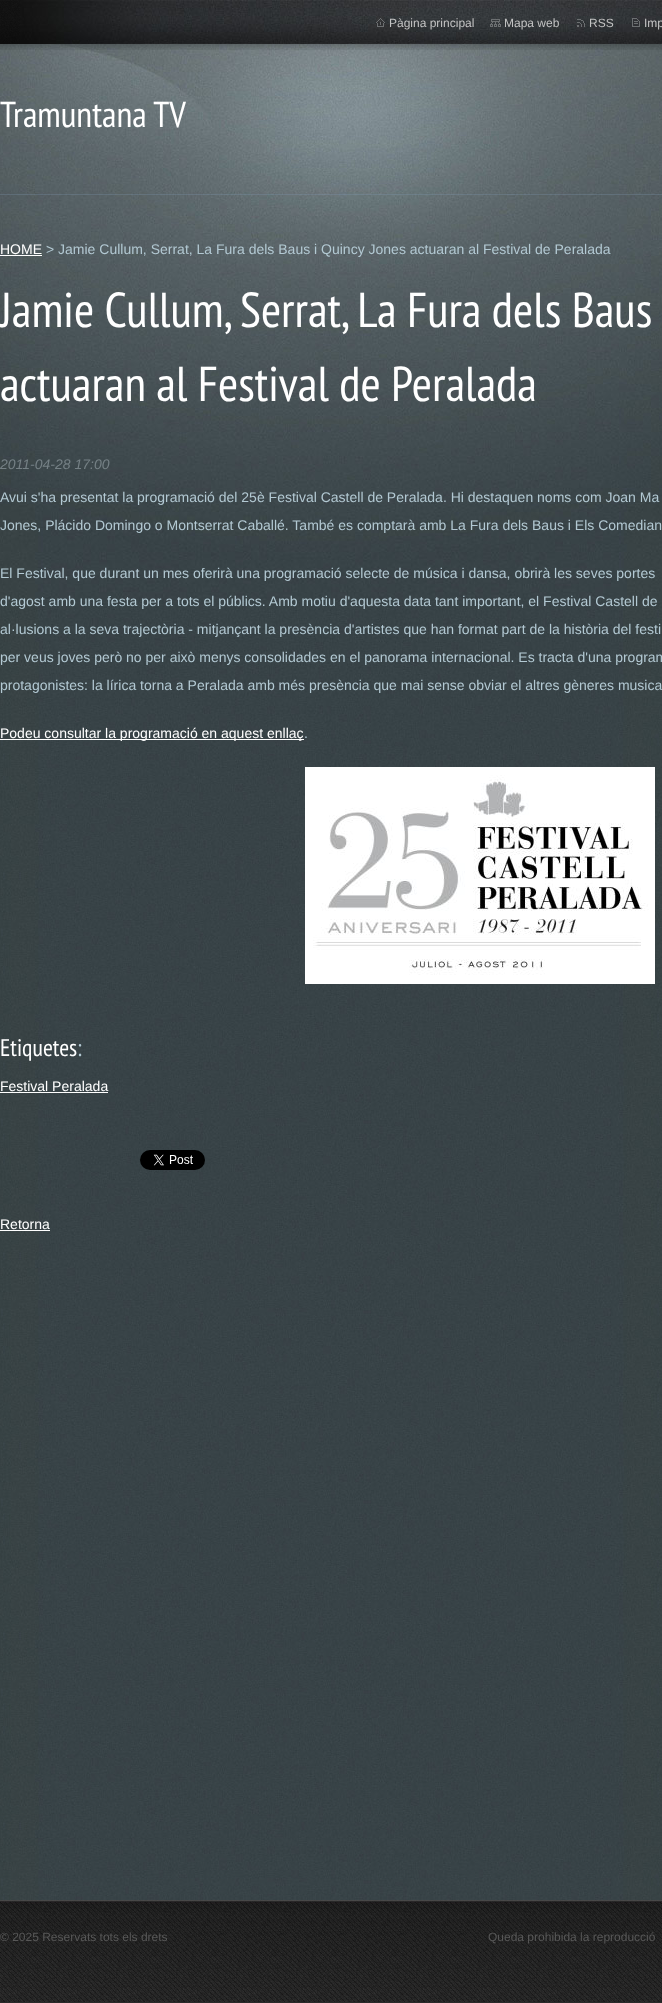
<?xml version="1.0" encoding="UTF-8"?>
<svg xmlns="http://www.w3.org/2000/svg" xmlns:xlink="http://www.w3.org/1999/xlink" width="662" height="2003">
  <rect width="100%" height="100%" fill="#ffffff" />
  <image x="0" y="600" width="662" height="1300" xlink:href="image1.png" />
  <image x="0" y="44" width="662" height="556" xlink:href="image2.png" />
  <rect y="194" width="662" height="1" fill="#839eb9" fill-opacity="0.26" />
  <image x="0" y="0" width="662" height="50" xlink:href="image3.png" />
  <image x="20" y="0" width="642" height="44" xlink:href="image4.png" />
  <image x="376" y="18" width="9" height="9" xlink:href="image5.png" />
  <image x="490" y="19" width="11" height="8" xlink:href="image6.png" />
  <image x="577" y="19" width="8" height="8" xlink:href="image7.png" />
  <image x="632" y="18" width="8" height="9" xlink:href="image8.png" />
  <rect y="255" width="42" height="1" fill="#ffffff" />
  <rect y="739" width="304" height="1" fill="#ffffff" />
  <image x="305" y="767" width="350" height="217" xlink:href="image9.png" />
  <rect y="1092" width="108" height="1" fill="#ffffff" />
  <image x="140" y="1150" width="65" height="20" xlink:href="image10.png" />
  <rect y="1230" width="50" height="1" fill="#ffffff" />
  <rect y="2002" width="662" height="1" fill="#2a2a2a" />
  <image x="0" y="1900" width="662" height="102" xlink:href="image11.png" />
  <text x="389" y="27" style="font-family: Liberation Sans; font-size: 12px; fill: #c3c3c3">Pàgina principal</text>
  <text x="504" y="27" style="font-family: Liberation Sans; font-size: 12px; fill: #c3c3c3">Mapa web</text>
  <text x="589" y="27" style="font-family: Liberation Sans; font-size: 12px; fill: #c3c3c3">RSS</text>
  <text x="644" y="27" style="font-family: Liberation Sans; font-size: 12px; fill: #c3c3c3">Imp</text>
  <text x="0" y="127" style="font-family: PT Sans Narrow; font-size: 36px; fill: #ffffff">Tramuntana TV</text>
  <text x="0" y="254" style="font-family: Liberation Sans; font-size: 14px; fill: #ffffff">HOME</text>
  <text x="46" y="254" style="font-family: Liberation Sans; font-size: 14px; fill: #b3c9d3">&gt; Jamie Cullum, Serrat, La Fura dels Baus i Quincy Jones actuaran al Festival de Peralada</text>
  <text x="0" y="327" style="font-family: PT Sans Narrow; font-size: 49px; fill: #ffffff">Jamie Cullum, Serrat, La Fura dels Baus</text>
  <text x="0" y="401" style="font-family: PT Sans Narrow; font-size: 49px; fill: #ffffff">actuaran al Festival de Peralada</text>
  <text x="0" y="469" style="font-family: Liberation Sans; font-size: 14px; font-style: italic; fill: #758085">2011-04-28 17:00</text>
  <text x="0" y="502" style="font-family: Liberation Sans; font-size: 14px; fill: #b3c9d3">Avui s'ha presentat la programació del 25è Festival Castell de Peralada. Hi destaquen noms com Joan Ma</text>
  <text x="0" y="530" style="font-family: Liberation Sans; font-size: 14px; fill: #b3c9d3">Jones, Plácido Domingo o Montserrat Caballé. També es comptarà amb La Fura dels Baus i Els Comedian</text>
  <text x="0" y="578" style="font-family: Liberation Sans; font-size: 14px; fill: #b3c9d3">El Festival, que durant un mes oferirà una programació selecte de música i dansa, obrirà les seves portes</text>
  <text x="0" y="606" style="font-family: Liberation Sans; font-size: 14px; fill: #b3c9d3">d'agost amb una festa per a tots el públics. Amb motiu d'aquesta data tant important, el Festival Castell de</text>
  <text x="0" y="634" style="font-family: Liberation Sans; font-size: 14px; fill: #b3c9d3">al·lusions a la seva trajectòria - mitjançant la presència d'artistes que han format part de la història del festi</text>
  <text x="0" y="662" style="font-family: Liberation Sans; font-size: 14px; fill: #b3c9d3">per veus joves però no per això menys consolidades en el panorama internacional. Es tracta d'una program</text>
  <text x="0" y="690" style="font-family: Liberation Sans; font-size: 14px; fill: #b3c9d3">protagonistes: la lírica torna a Peralada amb més presència que mai sense obviar el altres gèneres musica</text>
  <text x="0" y="738" style="font-family: Liberation Sans; font-size: 14px; fill: #ffffff">Podeu consultar la programació en aquest enllaç</text>
  <text x="304" y="738" style="font-family: Liberation Sans; font-size: 14px; fill: #b3c9d3">.</text>
  <text x="0" y="1056" style="font-family: PT Sans Narrow; font-size: 24px; fill: #ffffff">Etiquetes</text>
  <text x="77" y="1056" style="font-family: PT Sans Narrow; font-size: 24px; fill: #b3c9d3">:</text>
  <text x="0" y="1091" style="font-family: Liberation Sans; font-size: 14px; fill: #ffffff">Festival Peralada</text>
  <text x="0" y="1229" style="font-family: Liberation Sans; font-size: 14px; fill: #ffffff">Retorna</text>
  <text x="0" y="1941" style="font-family: Liberation Sans; font-size: 12px; fill: #585858">© 2025 Reservats tots els drets</text>
  <text x="488" y="1941" style="font-family: Liberation Sans; font-size: 12px; fill: #585858">Queda prohibida la reproducció</text>
</svg>
